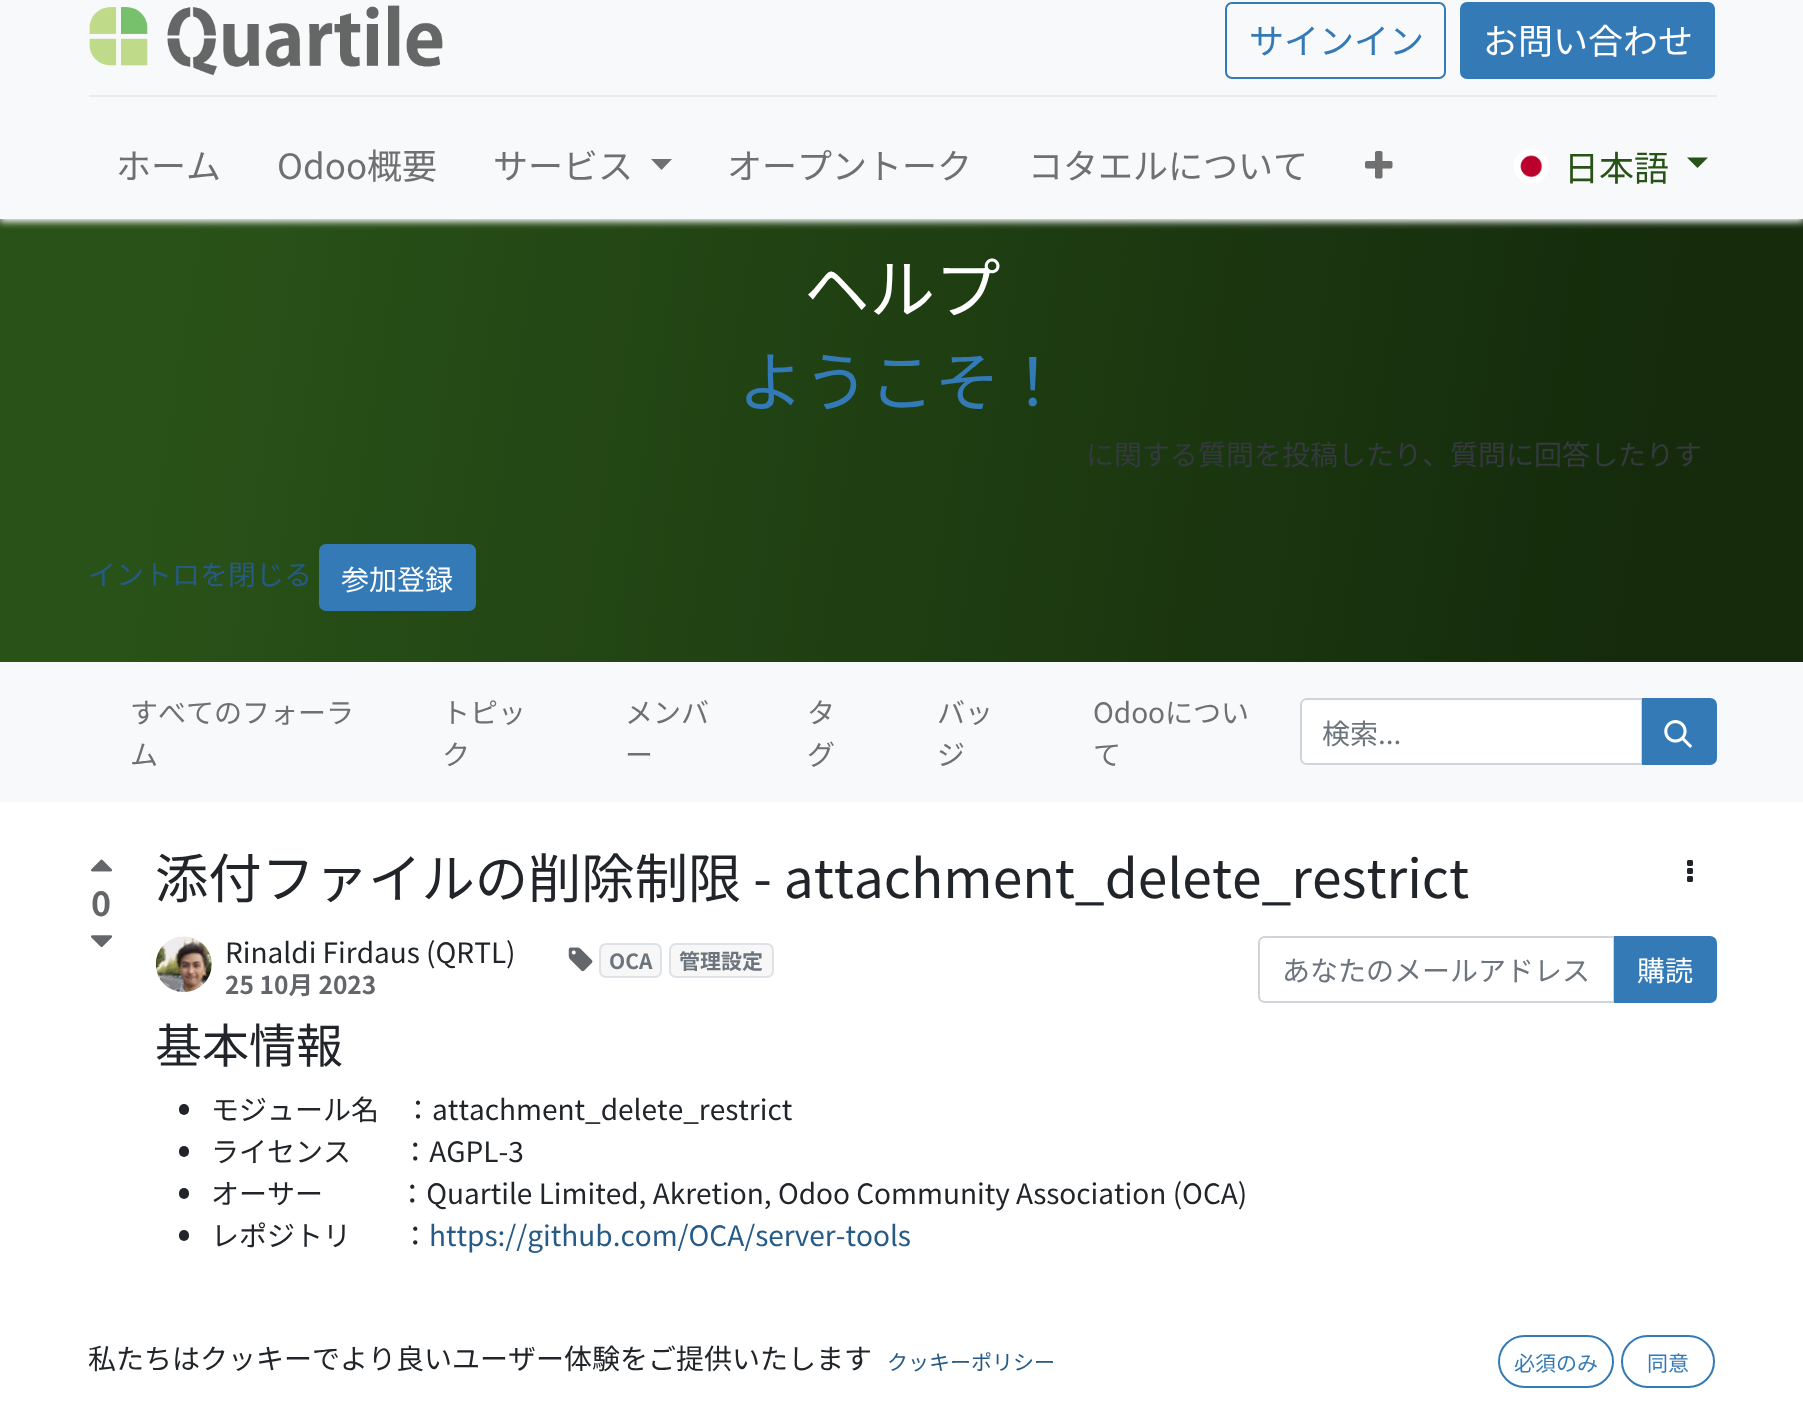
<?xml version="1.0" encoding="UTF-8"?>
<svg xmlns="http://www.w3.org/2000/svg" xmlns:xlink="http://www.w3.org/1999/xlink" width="1803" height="1415">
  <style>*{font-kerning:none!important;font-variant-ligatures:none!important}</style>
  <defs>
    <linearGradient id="g1" gradientUnits="userSpaceOnUse" x1="-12" y1="295" x2="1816" y2="585"><stop offset="0.1" stop-color="#295218" /><stop offset="0.9" stop-color="#152b0c" /></linearGradient>
  </defs>
  <rect width="100%" height="100%" fill="#ffffff" />
  <rect y="219" width="1803" height="443" fill="url(#g1)" />
  <rect y="4" width="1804" height="218" fill="#f8f9fa" filter="blur(3.5px)" />
  <rect width="1803" height="219" fill="#f8f9fa" />
  <image x="89" y="5" width="354" height="71" xlink:href="image1.png" />
  <rect x="1226" y="3" width="219" height="75" rx="6" fill="none" stroke="#337ab7" stroke-width="2" />
  <rect x="1461" y="3" width="253" height="75" rx="6" fill="#337ab7" stroke="#337ab7" stroke-width="2" />
  <rect x="89" y="95" width="1628" height="2" fill="#e9ecef" />
  <path d="M 651 159 h 21 l -10.5 11 z" fill="#707071" />
  <image x="1365" y="151" width="28" height="28" xlink:href="image2.png" />
  <image x="1514" y="149" width="35" height="34" xlink:href="image3.png" />
  <path d="M 1687 157.5 h 21 l -10.5 10.5 z" fill="#295218" />
  <rect x="320" y="545" width="155" height="65" rx="6" fill="#337ab7" stroke="#337ab7" stroke-width="2" />
  <rect y="662" width="1803" height="140" fill="#f8f9fa" />
  <path d="M 1307 699 h 335 v 65 h -335 c -3.5 0 -6 -2.5 -6 -6 v -53 c 0 -3.5 2.5 -6 6 -6 z" fill="#ffffff" stroke="#ced4da" stroke-width="2" />
  <path d="M 1643 699 h 67 c 3.5 0 6 2.5 6 6 v 53 c 0 3.5 -2.5 6 -6 6 h -67 z" fill="#337ab7" stroke="#337ab7" stroke-width="2" />
  <image x="1664" y="720" width="29" height="28" xlink:href="image4.png" />
  <image x="91" y="859" width="22" height="13" xlink:href="image5.png" />
  <image x="91" y="935" width="22" height="13" xlink:href="image6.png" />
  <image x="1687" y="860" width="6" height="22" xlink:href="image7.png" />
  <image x="155" y="936" width="57" height="57" xlink:href="image8.png" />
  <image x="568" y="947" width="25" height="25" xlink:href="image9.png" />
  <rect x="600" y="944" width="61" height="33" rx="6" fill="#f7f7f7" stroke="#dee2e6" stroke-width="2" />
  <rect x="670" y="944" width="103" height="33" rx="6" fill="#f7f7f7" stroke="#dee2e6" stroke-width="2" />
  <path d="M 1265 937 h 349 v 65 h -349 c -3.5 0 -6 -2.5 -6 -6 v -53 c 0 -3.5 2.5 -6 6 -6 z" fill="none" stroke="#ced4da" stroke-width="2" />
  <path d="M 1615 937 h 95 c 3.5 0 6 2.5 6 6 v 53 c 0 3.5 -2.5 6 -6 6 h -95 z" fill="#337ab7" stroke="#337ab7" stroke-width="2" />
  <rect x="179" y="1104" width="10" height="11" rx="5" fill="#212529" />
  <rect x="179" y="1146" width="10" height="11" rx="5" fill="#212529" />
  <rect x="179" y="1188" width="10" height="11" rx="5" fill="#212529" />
  <rect x="179" y="1230" width="10" height="11" rx="5" fill="#212529" />
  <rect x="1499" y="1336" width="114" height="51" rx="25.5" fill="none" stroke="#337ab7" stroke-width="2" />
  <rect x="1622" y="1336" width="92" height="51" rx="25.5" fill="none" stroke="#337ab7" stroke-width="2" />
  <text x="1249" y="54" style="font-family: Noto Sans JP; font-size: 35px; fill: #337ab7">サインイン</text>
  <text x="1483" y="54" style="font-family: Noto Sans JP; font-size: 35px; fill: #ffffff">お問い合わせ</text>
  <text x="116" y="179" style="font-family: Noto Sans JP; font-size: 35px; fill: #707071">ホーム</text>
  <text x="277" y="179" style="font-family: Noto Sans JP; font-size: 35px; fill: #707071">Odoo概要</text>
  <text x="493" y="179" style="font-family: Noto Sans JP; font-size: 35px; fill: #707071">サービス</text>
  <text x="727" y="179" style="font-family: Noto Sans JP; font-size: 35px; fill: #707071">オープントーク</text>
  <text x="1028" y="179" style="font-family: Noto Sans JP; font-size: 35px; fill: #707071">コタエルについて</text>
  <text x="1564" y="181" style="font-family: Noto Sans JP; font-size: 35px; fill: #295218">日本語</text>
  <text x="804" y="313" style="font-family: Noto Sans JP; font-size: 65.5px; fill: #ffffff">ヘルプ</text>
  <text x="738" y="406" style="font-family: Noto Sans JP; font-size: 65.5px; fill: #337ab7">ようこそ！</text>
  <text x="1086" y="465" style="font-family: Noto Sans JP; font-size: 28px; fill: #343a40">に関する質問を投稿したり、質問に回答したりす</text>
  <text x="88" y="585" style="font-family: Noto Sans JP; font-size: 28px; fill: #265a87">イントロを閉じる</text>
  <text x="341" y="590" style="font-family: Noto Sans JP; font-size: 28px; fill: #ffffff">参加登録</text>
  <text x="130" y="723" style="font-family: Noto Sans JP; font-size: 28px; fill: #707071">すべてのフォーラ</text>
  <text x="130" y="765" style="font-family: Noto Sans JP; font-size: 28px; fill: #707071">ム</text>
  <text x="442" y="723" style="font-family: Noto Sans JP; font-size: 28px; fill: #707071">トピッ</text>
  <text x="442" y="765" style="font-family: Noto Sans JP; font-size: 28px; fill: #707071">ク</text>
  <text x="625" y="723" style="font-family: Noto Sans JP; font-size: 28px; fill: #707071">メンバ</text>
  <text x="625" y="765" style="font-family: Noto Sans JP; font-size: 28px; fill: #707071">ー</text>
  <text x="807" y="723" style="font-family: Noto Sans JP; font-size: 28px; fill: #707071">タ</text>
  <text x="807" y="765" style="font-family: Noto Sans JP; font-size: 28px; fill: #707071">グ</text>
  <text x="937" y="723" style="font-family: Noto Sans JP; font-size: 28px; fill: #707071">バッ</text>
  <text x="937" y="765" style="font-family: Noto Sans JP; font-size: 28px; fill: #707071">ジ</text>
  <text x="1093" y="723" style="font-family: Noto Sans JP; font-size: 28px; fill: #707071">Odooについ</text>
  <text x="1093" y="765" style="font-family: Noto Sans JP; font-size: 28px; fill: #707071">て</text>
  <text x="1322" y="744" style="font-family: Noto Sans JP; font-size: 28px; fill: #6c757d">検索...</text>
  <text x="91" y="916" style="font-family: Noto Sans JP; font-size: 34px; font-weight: bold; fill: #646669">0</text>
  <text x="155" y="898" style="font-family: Noto Sans JP; font-size: 53.3px; fill: #212529">添付ファイルの削除制限 - attachment_delete_restrict</text>
  <text x="225" y="963" style="font-family: Noto Sans JP; font-size: 28px; fill: #212529">Rinaldi Firdaus (QRTL)</text>
  <text x="225" y="994" style="font-family: Noto Sans JP; font-size: 24.5px; font-weight: bold; fill: #646669">25 10月 2023</text>
  <text x="609" y="969" style="font-family: Noto Sans JP; font-size: 21px; font-weight: bold; fill: #6c757d">OCA</text>
  <text x="679" y="969" style="font-family: Noto Sans JP; font-size: 21px; font-weight: bold; fill: #6c757d">管理設定</text>
  <text x="1282" y="981" style="font-family: Noto Sans JP; font-size: 28px; fill: #6c757d">あなたのメールアドレス</text>
  <text x="1637" y="981" style="font-family: Noto Sans JP; font-size: 28px; fill: #ffffff">購読</text>
  <text x="155" y="1063" style="font-family: Noto Sans JP; font-size: 47px; fill: #212529">基本情報</text>
  <text x="211" y="1120" style="font-family: Noto Sans JP; font-size: 28px; fill: #212529" xml:space="preserve">モジュール名    ：attachment_delete_restrict</text>
  <text x="211" y="1162" style="font-family: Noto Sans JP; font-size: 28px; fill: #212529" xml:space="preserve">ライセンス        ：AGPL-3</text>
  <text x="211" y="1204" style="font-family: Noto Sans JP; font-size: 28px; fill: #212529" xml:space="preserve">オーサー            ：Quartile Limited, Akretion, Odoo Community Association (OCA)</text>
  <text x="211" y="1246" style="font-family: Noto Sans JP; font-size: 28px; fill: #212529" xml:space="preserve">レポジトリ        ：</text>
  <text x="429" y="1246" style="font-family: Noto Sans JP; font-size: 28px; fill: #265a87">https://github.com/OCA/server-tools</text>
  <text x="88" y="1369" style="font-family: Noto Sans JP; font-size: 28px; fill: #212529">私たちはクッキーでより良いユーザー体験をご提供いたします</text>
  <text x="887" y="1370" style="font-family: Noto Sans JP; font-size: 21px; fill: #265a87">クッキーポリシー</text>
  <text x="1514" y="1371" style="font-family: Noto Sans JP; font-size: 21px; fill: #337ab7">必須のみ</text>
  <text x="1647" y="1371" style="font-family: Noto Sans JP; font-size: 21px; fill: #337ab7">同意</text>
</svg>
